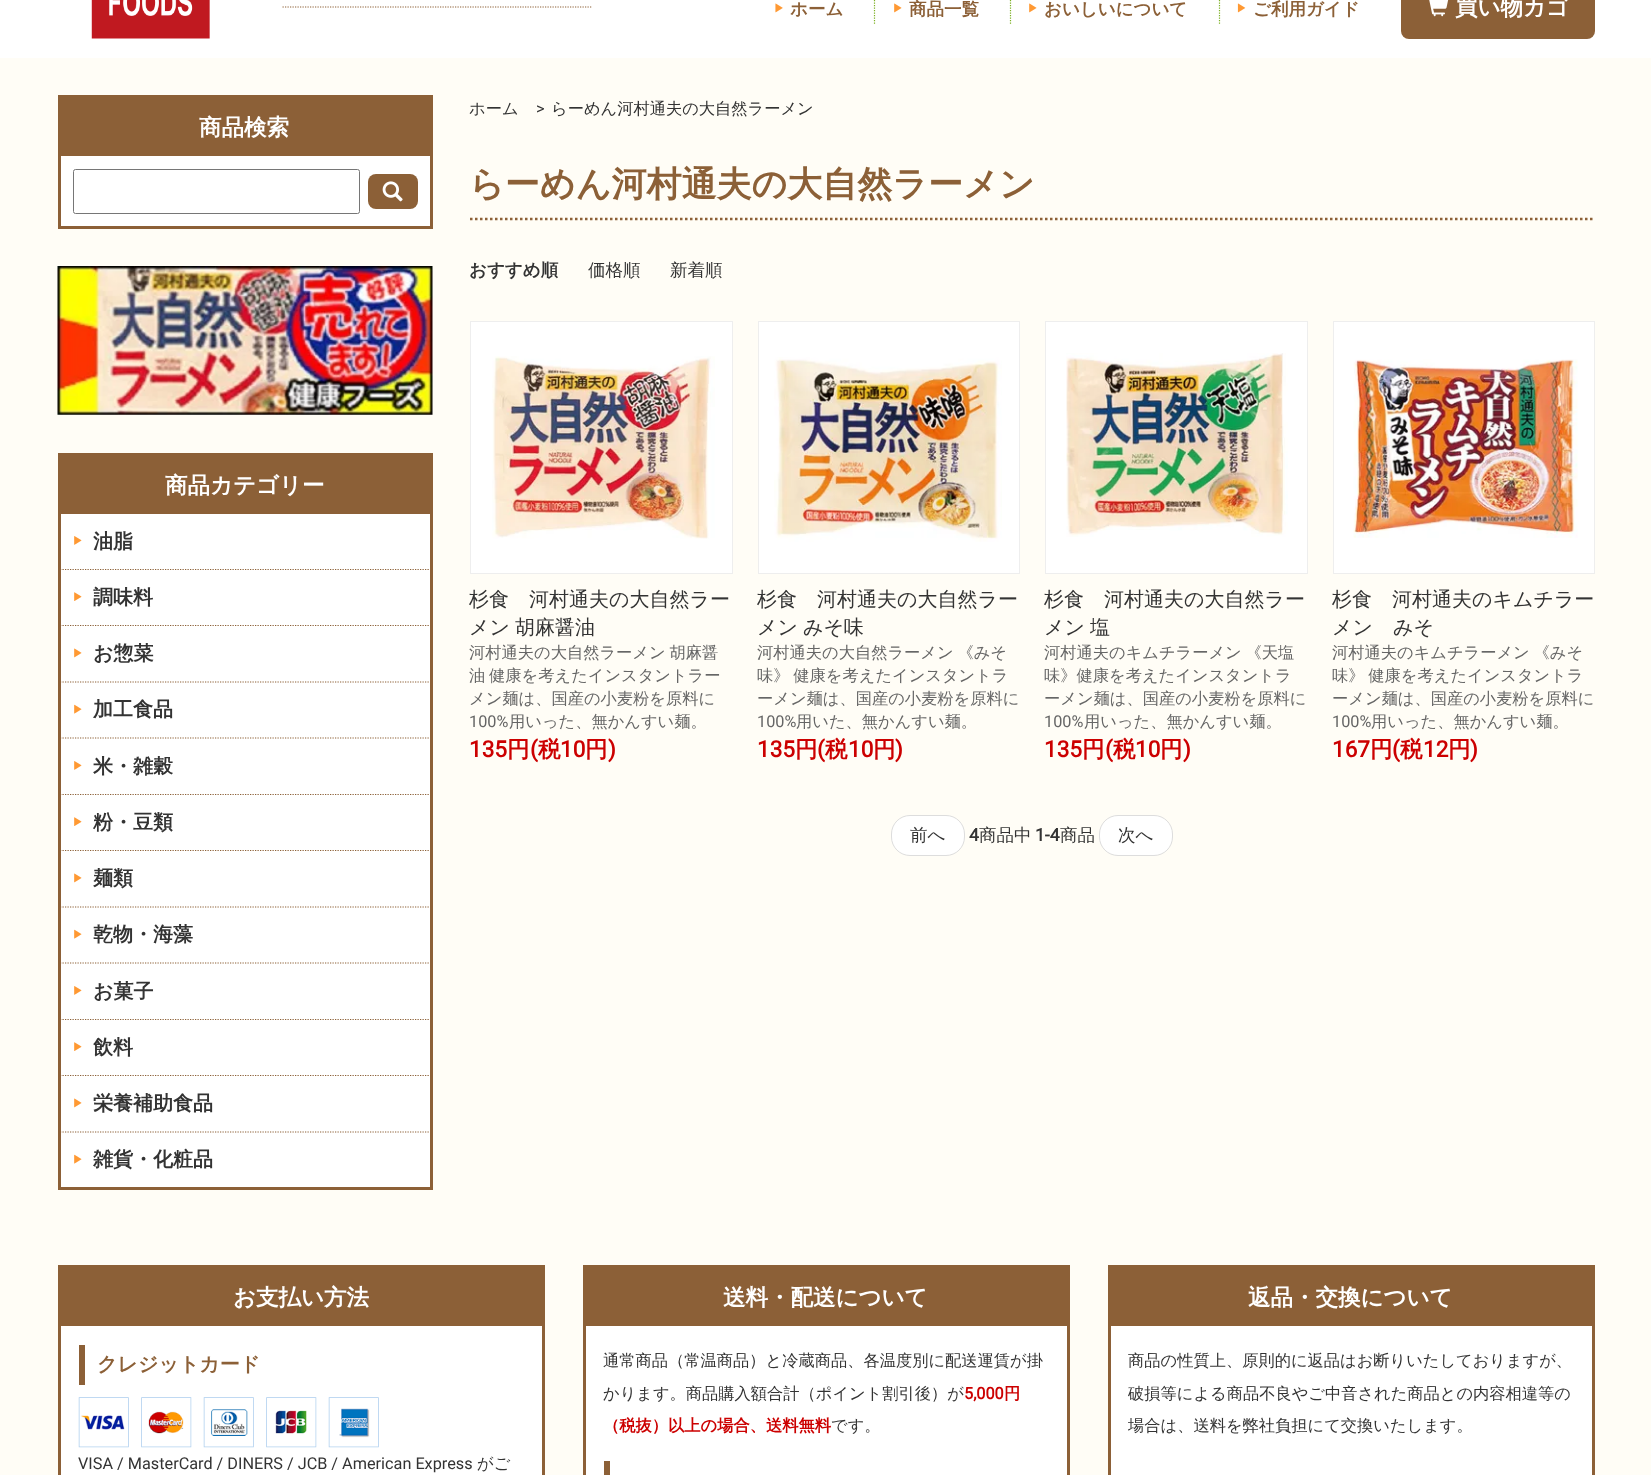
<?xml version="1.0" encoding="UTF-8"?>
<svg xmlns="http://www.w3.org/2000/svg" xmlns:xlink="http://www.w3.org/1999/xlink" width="1651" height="1475">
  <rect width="100%" height="100%" fill="#fffdf6" />
  <rect width="1651" height="58" fill="#ffffff" />
  <image x="91" y="0" width="119" height="39" xlink:href="image1.png" />
  <path d="M 282.5 7 h 310" fill="none" stroke="#8c6037" stroke-width="1.2" stroke-dasharray="1.25 1.25" />
  <image x="775" y="3" width="8" height="10" xlink:href="image2.png" />
  <path d="M 874.5 -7.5 v 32.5" fill="none" stroke="#7bb023" stroke-width="1.2" stroke-dasharray="1.25 1.25" />
  <image x="894" y="3" width="8" height="10" xlink:href="image3.png" />
  <path d="M 1010.5 -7.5 v 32.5" fill="none" stroke="#7bb023" stroke-width="1.2" stroke-dasharray="1.25 1.25" />
  <image x="1029" y="3" width="8" height="10" xlink:href="image3.png" />
  <path d="M 1219.5 -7.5 v 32.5" fill="none" stroke="#7bb023" stroke-width="1.2" stroke-dasharray="1.25 1.25" />
  <image x="1237" y="3" width="9" height="10" xlink:href="image4.png" />
  <rect x="1401" y="-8" width="194" height="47" rx="8" fill="#8c6037" />
  <image x="1429" y="0" width="20" height="17" xlink:href="image5.png" />
  <rect x="61" y="156" width="369" height="70" fill="#ffffff" />
  <rect x="59.5" y="96.5" width="372" height="131" fill="none" stroke="#8c6037" stroke-width="3" />
  <rect x="61" y="98" width="369" height="58" fill="#8c6037" />
  <rect x="73.5" y="169.5" width="286" height="44" rx="2" fill="none" stroke="#767676" />
  <rect x="368" y="174" width="50" height="35" rx="8" fill="#8c6037" />
  <image x="382" y="181" width="21" height="21" xlink:href="image6.png" />
  <image x="57" y="266" width="376" height="149" xlink:href="image7.png" />
  <rect x="61" y="514" width="369" height="673" fill="#ffffff" />
  <rect x="59.5" y="454.5" width="372" height="734" fill="none" stroke="#8c6037" stroke-width="3" />
  <rect x="61" y="456" width="369" height="58" fill="#8c6037" />
  <image x="74" y="536" width="8" height="9" xlink:href="image8.png" />
  <path d="M 60 569.5 h 370" fill="none" stroke="#8c6037" stroke-width="1.2" stroke-dasharray="1.25 1.25" />
  <image x="74" y="592" width="8" height="9" xlink:href="image9.png" />
  <path d="M 60 625.5 h 370" fill="none" stroke="#8c6037" stroke-width="1.2" stroke-dasharray="1.25 1.25" />
  <image x="74" y="648" width="8" height="10" xlink:href="image3.png" />
  <path d="M 60 682 h 370" fill="none" stroke="#8c6037" stroke-width="1.2" stroke-dasharray="1.25 1.25" />
  <image x="74" y="704" width="8" height="10" xlink:href="image10.png" />
  <path d="M 60 738 h 370" fill="none" stroke="#8c6037" stroke-width="1.2" stroke-dasharray="1.25 1.25" />
  <image x="74" y="761" width="8" height="9" xlink:href="image8.png" />
  <path d="M 60 794.5 h 370" fill="none" stroke="#8c6037" stroke-width="1.2" stroke-dasharray="1.25 1.25" />
  <image x="74" y="817" width="8" height="9" xlink:href="image9.png" />
  <path d="M 60 850.5 h 370" fill="none" stroke="#8c6037" stroke-width="1.2" stroke-dasharray="1.25 1.25" />
  <image x="74" y="873" width="8" height="10" xlink:href="image3.png" />
  <path d="M 60 907 h 370" fill="none" stroke="#8c6037" stroke-width="1.2" stroke-dasharray="1.25 1.25" />
  <image x="74" y="929" width="8" height="10" xlink:href="image10.png" />
  <path d="M 60 963 h 370" fill="none" stroke="#8c6037" stroke-width="1.2" stroke-dasharray="1.25 1.25" />
  <image x="74" y="986" width="8" height="9" xlink:href="image8.png" />
  <path d="M 60 1019.5 h 370" fill="none" stroke="#8c6037" stroke-width="1.2" stroke-dasharray="1.25 1.25" />
  <image x="74" y="1042" width="8" height="9" xlink:href="image9.png" />
  <path d="M 60 1075.5 h 370" fill="none" stroke="#8c6037" stroke-width="1.2" stroke-dasharray="1.25 1.25" />
  <image x="74" y="1098" width="8" height="10" xlink:href="image3.png" />
  <path d="M 60 1132 h 370" fill="none" stroke="#8c6037" stroke-width="1.2" stroke-dasharray="1.25 1.25" />
  <image x="74" y="1154" width="8" height="10" xlink:href="image10.png" />
  <path d="M 470 219 h 1125" fill="none" stroke="#8c6037" stroke-width="2.5" stroke-dasharray="2.5 2.5" />
  <rect x="470.5" y="321.5" width="262" height="252" fill="#ffffff" stroke="#eeeeee" />
  <image x="492" y="356" width="223" height="183" xlink:href="image11.png" />
  <rect x="758.5" y="321.5" width="261" height="252" fill="#ffffff" stroke="#eeeeee" />
  <image x="774" y="357" width="228" height="185" xlink:href="image12.png" />
  <rect x="1045.5" y="321.5" width="262" height="252" fill="#ffffff" stroke="#eeeeee" />
  <image x="1066" y="353" width="222" height="184" xlink:href="image13.png" />
  <rect x="1333.5" y="321.5" width="261" height="252" fill="#ffffff" stroke="#eeeeee" />
  <image x="1353" y="359" width="225" height="179" xlink:href="image14.png" />
  <rect x="891.5" y="815.5" width="73" height="40" rx="18.5" fill="#ffffff" stroke="#dddddd" />
  <rect x="1099.5" y="815.5" width="73" height="40" rx="18.5" fill="#ffffff" stroke="#dddddd" />
  <rect x="61" y="1326" width="481" height="149" fill="#ffffff" />
  <rect x="59.5" y="1266.5" width="484" height="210" fill="none" stroke="#8c6037" stroke-width="3" />
  <rect x="61" y="1268" width="481" height="58" fill="#8c6037" />
  <rect x="79" y="1345" width="6" height="40" fill="#8c6037" />
  <image x="78" y="1397" width="51" height="51" xlink:href="image15.png" />
  <image x="141" y="1397" width="51" height="51" xlink:href="image16.png" />
  <image x="203" y="1397" width="51" height="51" xlink:href="image17.png" />
  <image x="266" y="1397" width="51" height="51" xlink:href="image18.png" />
  <image x="328" y="1397" width="51" height="51" xlink:href="image19.png" />
  <rect x="586" y="1326" width="481" height="149" fill="#ffffff" />
  <rect x="584.5" y="1266.5" width="484" height="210" fill="none" stroke="#8c6037" stroke-width="3" />
  <rect x="586" y="1268" width="481" height="58" fill="#8c6037" />
  <rect x="604" y="1461" width="6" height="14" fill="#8c6037" />
  <rect x="1111" y="1326" width="481" height="149" fill="#ffffff" />
  <rect x="1109.5" y="1266.5" width="484" height="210" fill="none" stroke="#8c6037" stroke-width="3" />
  <rect x="1111" y="1268" width="481" height="58" fill="#8c6037" />
  <text x="790" y="15" style="font-family: WenQuanYi Zen Hei; font-size: 17.5px; font-weight: bold; fill: #8c6037">ホーム</text>
  <text x="909" y="15" style="font-family: WenQuanYi Zen Hei; font-size: 17.5px; font-weight: bold; fill: #8c6037">商品一覧</text>
  <text x="1044" y="15" style="font-family: WenQuanYi Zen Hei; font-size: 17.5px; font-weight: bold; fill: #8c6037">おいしいについて</text>
  <text x="1253" y="15" style="font-family: WenQuanYi Zen Hei; font-size: 17.5px; font-weight: bold; fill: #8c6037">ご利用ガイド</text>
  <text x="1455" y="15" style="font-family: WenQuanYi Zen Hei; font-size: 22.5px; font-weight: bold; fill: #ffffff">買い物カゴ</text>
  <text x="199" y="135" style="font-family: WenQuanYi Zen Hei; font-size: 22.5px; font-weight: bold; fill: #ffffff">商品検索</text>
  <text x="165" y="493" style="font-family: WenQuanYi Zen Hei; font-size: 22.5px; font-weight: bold; fill: #ffffff">商品カテゴリー</text>
  <text x="93" y="548" style="font-family: WenQuanYi Zen Hei; font-size: 20px; font-weight: bold; fill: #333333">油脂</text>
  <text x="93" y="604" style="font-family: WenQuanYi Zen Hei; font-size: 20px; font-weight: bold; fill: #333333">調味料</text>
  <text x="93" y="660" style="font-family: WenQuanYi Zen Hei; font-size: 20px; font-weight: bold; fill: #333333">お惣菜</text>
  <text x="93" y="716" style="font-family: WenQuanYi Zen Hei; font-size: 20px; font-weight: bold; fill: #333333">加工食品</text>
  <text x="93" y="773" style="font-family: WenQuanYi Zen Hei; font-size: 20px; font-weight: bold; fill: #333333">米・雑穀</text>
  <text x="93" y="829" style="font-family: WenQuanYi Zen Hei; font-size: 20px; font-weight: bold; fill: #333333">粉・豆類</text>
  <text x="93" y="885" style="font-family: WenQuanYi Zen Hei; font-size: 20px; font-weight: bold; fill: #333333">麺類</text>
  <text x="93" y="941" style="font-family: WenQuanYi Zen Hei; font-size: 20px; font-weight: bold; fill: #333333">乾物・海藻</text>
  <text x="93" y="998" style="font-family: WenQuanYi Zen Hei; font-size: 20px; font-weight: bold; fill: #333333">お菓子</text>
  <text x="93" y="1054" style="font-family: WenQuanYi Zen Hei; font-size: 20px; font-weight: bold; fill: #333333">飲料</text>
  <text x="93" y="1110" style="font-family: WenQuanYi Zen Hei; font-size: 20px; font-weight: bold; fill: #333333">栄養補助食品</text>
  <text x="93" y="1166" style="font-family: WenQuanYi Zen Hei; font-size: 20px; font-weight: bold; fill: #333333">雑貨・化粧品</text>
  <text x="469" y="114" style="font-family: WenQuanYi Zen Hei; font-size: 16.25px; font-weight: 500; fill: #333333">ホーム</text>
  <text x="536" y="114" style="font-family: Roboto; font-size: 16.25px; fill: #333333">&gt;</text>
  <text x="551" y="114" style="font-family: WenQuanYi Zen Hei; font-size: 16.25px; font-weight: 500; fill: #333333">らーめん河村通夫の大自然ラーメン</text>
  <text x="469" y="196" style="font-family: WenQuanYi Zen Hei; font-size: 35px; font-weight: bold; fill: #8c6037">らーめん河村通夫の大自然ラーメン</text>
  <text x="469" y="276" style="font-family: WenQuanYi Zen Hei; font-size: 17.5px; font-weight: bold; fill: #333333">おすすめ順</text>
  <text x="588" y="276" style="font-family: WenQuanYi Zen Hei; font-size: 17.5px; font-weight: 500; fill: #333333">価格順</text>
  <text x="670" y="276" style="font-family: WenQuanYi Zen Hei; font-size: 17.5px; font-weight: 500; fill: #333333">新着順</text>
  <text x="469" y="606" style="font-family: WenQuanYi Zen Hei; font-size: 20px; font-weight: 500; fill: #333333">杉食　河村通夫の大自然ラー</text>
  <text x="469" y="634" word-spacing="-1" style="font-family: WenQuanYi Zen Hei; font-size: 20px; font-weight: 500; fill: #333333">メン 胡麻醤油</text>
  <text x="469" y="658" word-spacing="-1" style="font-family: WenQuanYi Zen Hei; font-size: 16.25px; font-weight: 500; fill: #666666">河村通夫の大自然ラーメン 胡麻醤</text>
  <text x="469" y="681" word-spacing="-1" style="font-family: WenQuanYi Zen Hei; font-size: 16.25px; font-weight: 500; fill: #666666">油 健康を考えたインスタントラー</text>
  <text x="469" y="704" style="font-family: WenQuanYi Zen Hei; font-size: 16.25px; font-weight: 500; fill: #666666">メン麺は、国産の小麦粉を原料に</text>
  <text x="469" y="727" style="font-family: Roboto; font-size: 16.25px; fill: #666666">100%</text>
  <text x="509" y="727" style="font-family: WenQuanYi Zen Hei; font-size: 16.25px; font-weight: 500; fill: #666666">用いった、無かんすい麺。</text>
  <text x="469" y="757" style="font-family: Roboto; font-size: 22.5px; font-weight: bold; fill: #cc0000">135</text>
  <text x="507" y="757" style="font-family: WenQuanYi Zen Hei; font-size: 22.5px; font-weight: bold; fill: #cc0000">円</text>
  <text x="530" y="757" style="font-family: Roboto; font-size: 22.5px; font-weight: bold; fill: #cc0000">(</text>
  <text x="538" y="757" style="font-family: WenQuanYi Zen Hei; font-size: 22.5px; font-weight: bold; fill: #cc0000">税</text>
  <text x="560" y="757" style="font-family: Roboto; font-size: 22.5px; font-weight: bold; fill: #cc0000">10</text>
  <text x="585" y="757" style="font-family: WenQuanYi Zen Hei; font-size: 22.5px; font-weight: bold; fill: #cc0000">円</text>
  <text x="608" y="757" style="font-family: Roboto; font-size: 22.5px; font-weight: bold; fill: #cc0000">)</text>
  <text x="757" y="606" style="font-family: WenQuanYi Zen Hei; font-size: 20px; font-weight: 500; fill: #333333">杉食　河村通夫の大自然ラー</text>
  <text x="757" y="634" word-spacing="-1" style="font-family: WenQuanYi Zen Hei; font-size: 20px; font-weight: 500; fill: #333333">メン みそ味</text>
  <text x="757" y="658" word-spacing="-1" style="font-family: WenQuanYi Zen Hei; font-size: 16.25px; font-weight: 500; fill: #666666">河村通夫の大自然ラーメン 《みそ</text>
  <text x="757" y="681" word-spacing="-1" style="font-family: WenQuanYi Zen Hei; font-size: 16.25px; font-weight: 500; fill: #666666">味》 健康を考えたインスタントラ</text>
  <text x="757" y="704" style="font-family: WenQuanYi Zen Hei; font-size: 16.25px; font-weight: 500; fill: #666666">ーメン麺は、国産の小麦粉を原料に</text>
  <text x="757" y="727" style="font-family: Roboto; font-size: 16.25px; fill: #666666">100%</text>
  <text x="796" y="727" style="font-family: WenQuanYi Zen Hei; font-size: 16.25px; font-weight: 500; fill: #666666">用いた、無かんすい麺。</text>
  <text x="757" y="757" style="font-family: Roboto; font-size: 22.5px; font-weight: bold; fill: #cc0000">135</text>
  <text x="795" y="757" style="font-family: WenQuanYi Zen Hei; font-size: 22.5px; font-weight: bold; fill: #cc0000">円</text>
  <text x="817" y="757" style="font-family: Roboto; font-size: 22.5px; font-weight: bold; fill: #cc0000">(</text>
  <text x="825" y="757" style="font-family: WenQuanYi Zen Hei; font-size: 22.5px; font-weight: bold; fill: #cc0000">税</text>
  <text x="848" y="757" style="font-family: Roboto; font-size: 22.5px; font-weight: bold; fill: #cc0000">10</text>
  <text x="873" y="757" style="font-family: WenQuanYi Zen Hei; font-size: 22.5px; font-weight: bold; fill: #cc0000">円</text>
  <text x="895" y="757" style="font-family: Roboto; font-size: 22.5px; font-weight: bold; fill: #cc0000">)</text>
  <text x="1044" y="606" style="font-family: WenQuanYi Zen Hei; font-size: 20px; font-weight: 500; fill: #333333">杉食　河村通夫の大自然ラー</text>
  <text x="1044" y="634" word-spacing="-1" style="font-family: WenQuanYi Zen Hei; font-size: 20px; font-weight: 500; fill: #333333">メン 塩</text>
  <text x="1044" y="658" word-spacing="-1" style="font-family: WenQuanYi Zen Hei; font-size: 16.25px; font-weight: 500; fill: #666666">河村通夫のキムチラーメン 《天塩</text>
  <text x="1044" y="681" style="font-family: WenQuanYi Zen Hei; font-size: 16.25px; font-weight: 500; fill: #666666">味》健康を考えたインスタントラ</text>
  <text x="1044" y="704" style="font-family: WenQuanYi Zen Hei; font-size: 16.25px; font-weight: 500; fill: #666666">ーメン麺は、国産の小麦粉を原料に</text>
  <text x="1044" y="727" style="font-family: Roboto; font-size: 16.25px; fill: #666666">100%</text>
  <text x="1084" y="727" style="font-family: WenQuanYi Zen Hei; font-size: 16.25px; font-weight: 500; fill: #666666">用いった、無かんすい麺。</text>
  <text x="1044" y="757" style="font-family: Roboto; font-size: 22.5px; font-weight: bold; fill: #cc0000">135</text>
  <text x="1082" y="757" style="font-family: WenQuanYi Zen Hei; font-size: 22.5px; font-weight: bold; fill: #cc0000">円</text>
  <text x="1105" y="757" style="font-family: Roboto; font-size: 22.5px; font-weight: bold; fill: #cc0000">(</text>
  <text x="1113" y="757" style="font-family: WenQuanYi Zen Hei; font-size: 22.5px; font-weight: bold; fill: #cc0000">税</text>
  <text x="1135" y="757" style="font-family: Roboto; font-size: 22.5px; font-weight: bold; fill: #cc0000">10</text>
  <text x="1160" y="757" style="font-family: WenQuanYi Zen Hei; font-size: 22.5px; font-weight: bold; fill: #cc0000">円</text>
  <text x="1183" y="757" style="font-family: Roboto; font-size: 22.5px; font-weight: bold; fill: #cc0000">)</text>
  <text x="1332" y="606" style="font-family: WenQuanYi Zen Hei; font-size: 20px; font-weight: 500; fill: #333333">杉食　河村通夫のキムチラー</text>
  <text x="1332" y="634" style="font-family: WenQuanYi Zen Hei; font-size: 20px; font-weight: 500; fill: #333333">メン　みそ</text>
  <text x="1332" y="658" word-spacing="-1" style="font-family: WenQuanYi Zen Hei; font-size: 16.25px; font-weight: 500; fill: #666666">河村通夫のキムチラーメン 《みそ</text>
  <text x="1332" y="681" word-spacing="-1" style="font-family: WenQuanYi Zen Hei; font-size: 16.25px; font-weight: 500; fill: #666666">味》 健康を考えたインスタントラ</text>
  <text x="1332" y="704" style="font-family: WenQuanYi Zen Hei; font-size: 16.25px; font-weight: 500; fill: #666666">ーメン麺は、国産の小麦粉を原料に</text>
  <text x="1332" y="727" style="font-family: Roboto; font-size: 16.25px; fill: #666666">100%</text>
  <text x="1371" y="727" style="font-family: WenQuanYi Zen Hei; font-size: 16.25px; font-weight: 500; fill: #666666">用いった、無かんすい麺。</text>
  <text x="1332" y="757" style="font-family: Roboto; font-size: 22.5px; font-weight: bold; fill: #cc0000">167</text>
  <text x="1370" y="757" style="font-family: WenQuanYi Zen Hei; font-size: 22.5px; font-weight: bold; fill: #cc0000">円</text>
  <text x="1392" y="757" style="font-family: Roboto; font-size: 22.5px; font-weight: bold; fill: #cc0000">(</text>
  <text x="1400" y="757" style="font-family: WenQuanYi Zen Hei; font-size: 22.5px; font-weight: bold; fill: #cc0000">税</text>
  <text x="1423" y="757" style="font-family: Roboto; font-size: 22.5px; font-weight: bold; fill: #cc0000">12</text>
  <text x="1448" y="757" style="font-family: WenQuanYi Zen Hei; font-size: 22.5px; font-weight: bold; fill: #cc0000">円</text>
  <text x="1470" y="757" style="font-family: Roboto; font-size: 22.5px; font-weight: bold; fill: #cc0000">)</text>
  <text x="910" y="841" style="font-family: WenQuanYi Zen Hei; font-size: 17.5px; font-weight: 500; fill: #333333">前へ</text>
  <text x="969" y="841" style="font-family: Roboto; font-size: 17.5px; font-weight: bold; fill: #333333">4</text>
  <text x="979" y="841" style="font-family: WenQuanYi Zen Hei; font-size: 17.5px; font-weight: 500; fill: #333333">商品中</text>
  <text x="1035" y="841" style="font-family: Roboto; font-size: 17.5px; font-weight: bold; fill: #333333">1-4</text>
  <text x="1060" y="841" style="font-family: WenQuanYi Zen Hei; font-size: 17.5px; font-weight: 500; fill: #333333">商品</text>
  <text x="1118" y="841" style="font-family: WenQuanYi Zen Hei; font-size: 17.5px; font-weight: 500; fill: #333333">次へ</text>
  <text x="233" y="1305" style="font-family: WenQuanYi Zen Hei; font-size: 22.5px; font-weight: bold; fill: #ffffff">お支払い方法</text>
  <text x="97" y="1371" style="font-family: WenQuanYi Zen Hei; font-size: 20px; font-weight: bold; fill: #8c6037">クレジットカード</text>
  <text x="78" y="1469" style="font-family: Roboto; font-size: 16.25px; fill: #333333">VISA / MasterCard / DINERS / JCB / American Express</text>
  <text x="477" y="1469" style="font-family: WenQuanYi Zen Hei; font-size: 16.25px; font-weight: 500; fill: #333333">がご</text>
  <text x="723" y="1305" style="font-family: WenQuanYi Zen Hei; font-size: 22.5px; font-weight: bold; fill: #ffffff">送料・配送について</text>
  <text x="603" y="1366" style="font-family: WenQuanYi Zen Hei; font-size: 16.25px; font-weight: 500; fill: #333333">通常商品（常温商品）と冷蔵商品、各温度別に配送運賃が掛</text>
  <text x="603" y="1399" style="font-family: WenQuanYi Zen Hei; font-size: 16.25px; font-weight: 500; fill: #333333">かります。商品購入額合計（ポイント割引後）が</text>
  <text x="964" y="1399" style="font-family: Roboto; font-size: 16.25px; font-weight: bold; fill: #cc0000">5,000</text>
  <text x="1004" y="1399" style="font-family: WenQuanYi Zen Hei; font-size: 16.25px; font-weight: bold; fill: #cc0000">円</text>
  <text x="603" y="1431" style="font-family: WenQuanYi Zen Hei; font-size: 16.25px; font-weight: bold; fill: #cc0000">（税抜）以上の場合、送料無料</text>
  <text x="831" y="1431" style="font-family: WenQuanYi Zen Hei; font-size: 16.25px; font-weight: 500; fill: #333333">です。</text>
  <text x="1248" y="1305" style="font-family: WenQuanYi Zen Hei; font-size: 22.5px; font-weight: bold; fill: #ffffff">返品・交換について</text>
  <text x="1128" y="1366" style="font-family: WenQuanYi Zen Hei; font-size: 16.25px; font-weight: 500; fill: #333333">商品の性質上、原則的に返品はお断りいたしておりますが、</text>
  <text x="1128" y="1399" style="font-family: WenQuanYi Zen Hei; font-size: 16.25px; font-weight: 500; fill: #333333">破損等による商品不良やご中音された商品との内容相違等の</text>
  <text x="1128" y="1431" style="font-family: WenQuanYi Zen Hei; font-size: 16.25px; font-weight: 500; fill: #333333">場合は、送料を弊社負担にて交換いたします。</text>
</svg>
